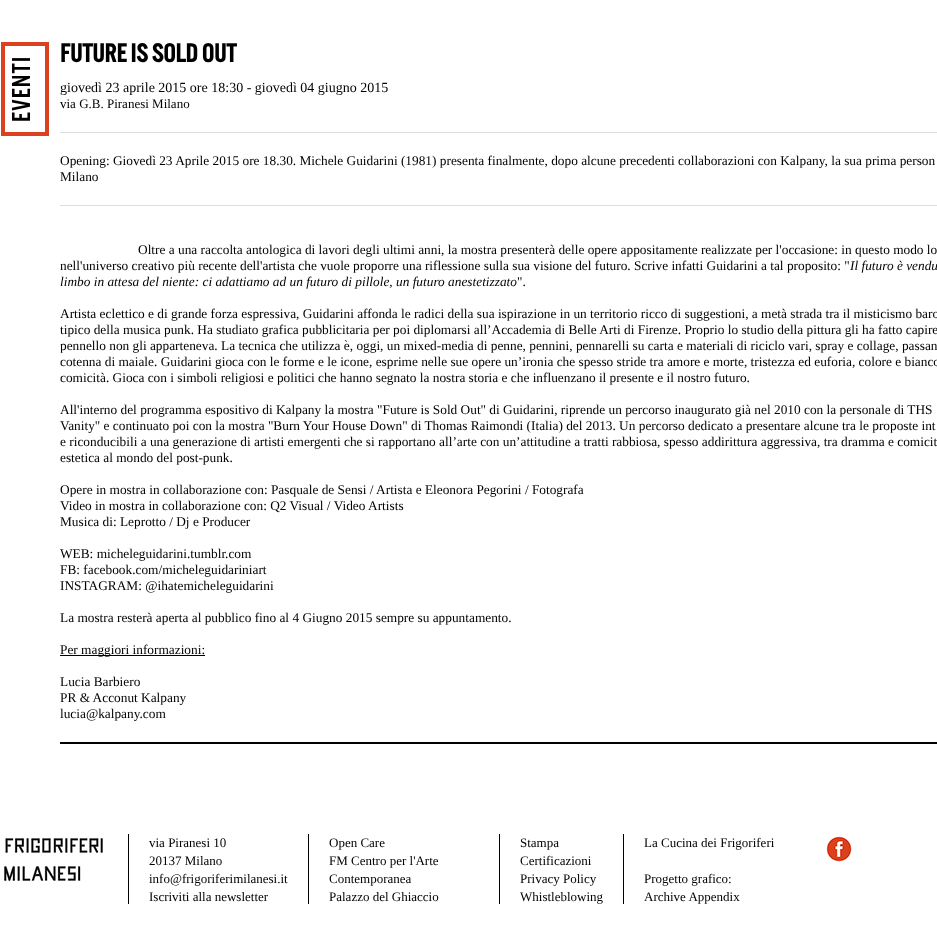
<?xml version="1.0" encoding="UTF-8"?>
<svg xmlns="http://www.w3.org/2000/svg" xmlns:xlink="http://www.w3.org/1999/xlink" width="937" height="944">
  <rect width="100%" height="100%" fill="#ffffff" />
  <path d="M 3 134 v -90 h 44 v 90 z" fill="none" stroke="#da411e" stroke-width="4" />
  <rect x="60" y="742" width="877" height="2" fill="#000000" />
  <rect x="60" y="132" width="877" height="1" fill="#dddddd" />
  <rect x="60" y="205" width="877" height="1" fill="#dddddd" />
  <rect x="60" y="655" width="145" height="1" fill="#000000" />
  <image x="5" y="838" width="98" height="15" xlink:href="image1.png" />
  <image x="4" y="866" width="77" height="15" xlink:href="image2.png" />
  <rect x="128" y="834" width="1" height="70" fill="#000000" />
  <rect x="308" y="834" width="1" height="70" fill="#000000" />
  <rect x="499" y="834" width="1" height="70" fill="#000000" />
  <rect x="623" y="834" width="1" height="70" fill="#000000" />
  <image x="826" y="836" width="26" height="26" xlink:href="image3.png" />
  <text x="30" y="122" transform="rotate(-90 30 122)" style="font-family: 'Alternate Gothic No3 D'; font-size: 27px; letter-spacing: 1px; fill: #000000">EVENTI</text>
  <text x="60" y="62" style="font-family: 'Alternate Gothic No3 D'; font-size: 27px; font-weight: bold; fill: #000000">FUTURE IS SOLD OUT</text>
  <text x="60" y="92" style="font-family: Liberation Serif; font-size: 14px; fill: #000000">giovedì 23 aprile 2015 ore 18:30 - giovedì 04 giugno 2015</text>
  <text x="60" y="108" style="font-family: Liberation Serif; font-size: 13px; fill: #000000">via G.B. Piranesi Milano</text>
  <text x="60" y="165" style="font-family: Liberation Serif; font-size: 13.33px; fill: #000000">Opening: Giovedì 23 Aprile 2015 ore 18.30. Michele Guidarini (1981) presenta finalmente, dopo alcune precedenti collaborazioni con Kalpany, la sua prima person</text>
  <text x="60" y="181" style="font-family: Liberation Serif; font-size: 13.33px; fill: #000000">Milano</text>
  <text x="138" y="254" style="font-family: Liberation Serif; font-size: 13.33px; fill: #000000">Oltre a una raccolta antologica di lavori degli ultimi anni, la mostra presenterà delle opere appositamente realizzate per l'occasione: in questo modo lo</text>
  <text x="60" y="270" style="font-family: Liberation Serif; font-size: 13.33px; fill: #000000">nell'universo creativo più recente dell'artista che vuole proporre una riflessione sulla sua visione del futuro. Scrive infatti Guidarini a tal proposito: "</text>
  <text x="850" y="270" style="font-family: Liberation Serif; font-size: 13.33px; font-style: italic; fill: #000000">Il futuro è vendu</text>
  <text x="60" y="286" style="font-family: Liberation Serif; font-size: 13.33px; font-style: italic; fill: #000000">limbo in attesa del niente: ci adattiamo ad un futuro di pillole, un futuro anestetizzato</text>
  <text x="517" y="286" style="font-family: Liberation Serif; font-size: 13.33px; fill: #000000">".</text>
  <text x="60" y="318" style="font-family: Liberation Serif; font-size: 13.33px; fill: #000000">Artista eclettico e di grande forza espressiva, Guidarini affonda le radici della sua ispirazione in un territorio ricco di suggestioni, a metà strada tra il misticismo baro</text>
  <text x="60" y="334" style="font-family: Liberation Serif; font-size: 13.33px; fill: #000000">tipico della musica punk. Ha studiato grafica pubblicitaria per poi diplomarsi all’Accademia di Belle Arti di Firenze. Proprio lo studio della pittura gli ha fatto capire</text>
  <text x="60" y="350" style="font-family: Liberation Serif; font-size: 13.33px; fill: #000000">pennello non gli apparteneva. La tecnica che utilizza è, oggi, un mixed-media di penne, pennini, pennarelli su carta e materiali di riciclo vari, spray e collage, passan</text>
  <text x="60" y="366" style="font-family: Liberation Serif; font-size: 13.33px; fill: #000000">cotenna di maiale. Guidarini gioca con le forme e le icone, esprime nelle sue opere un’ironia che spesso stride tra amore e morte, tristezza ed euforia, colore e bianco</text>
  <text x="60" y="382" style="font-family: Liberation Serif; font-size: 13.33px; fill: #000000">comicità. Gioca con i simboli religiosi e politici che hanno segnato la nostra storia e che influenzano il presente e il nostro futuro.</text>
  <text x="60" y="414" style="font-family: Liberation Serif; font-size: 13.33px; fill: #000000">All'interno del programma espositivo di Kalpany la mostra "Future is Sold Out" di Guidarini, riprende un percorso inaugurato già nel 2010 con la personale di THS</text>
  <text x="60" y="430" style="font-family: Liberation Serif; font-size: 13.33px; fill: #000000">Vanity" e continuato poi con la mostra "Burn Your House Down" di Thomas Raimondi (Italia) del 2013. Un percorso dedicato a presentare alcune tra le proposte int</text>
  <text x="60" y="446" style="font-family: Liberation Serif; font-size: 13.33px; fill: #000000">e riconducibili a una generazione di artisti emergenti che si rapportano all’arte con un’attitudine a tratti rabbiosa, spesso addirittura aggressiva, tra dramma e comicit</text>
  <text x="60" y="462" style="font-family: Liberation Serif; font-size: 13.33px; fill: #000000">estetica al mondo del post-punk.</text>
  <text x="60" y="494" style="font-family: Liberation Serif; font-size: 13.33px; fill: #000000">Opere in mostra in collaborazione con: Pasquale de Sensi / Artista e Eleonora Pegorini / Fotografa</text>
  <text x="60" y="510" style="font-family: Liberation Serif; font-size: 13.33px; fill: #000000">Video in mostra in collaborazione con: Q2 Visual / Video Artists</text>
  <text x="60" y="526" style="font-family: Liberation Serif; font-size: 13.33px; fill: #000000">Musica di: Leprotto / Dj e Producer</text>
  <text x="60" y="558" style="font-family: Liberation Serif; font-size: 13.33px; fill: #000000">WEB: micheleguidarini.tumblr.com</text>
  <text x="60" y="574" style="font-family: Liberation Serif; font-size: 13.33px; fill: #000000">FB: facebook.com/micheleguidariniart</text>
  <text x="60" y="590" style="font-family: Liberation Serif; font-size: 13.33px; fill: #000000">INSTAGRAM: @ihatemicheleguidarini</text>
  <text x="60" y="622" style="font-family: Liberation Serif; font-size: 13.33px; fill: #000000">La mostra resterà aperta al pubblico fino al 4 Giugno 2015 sempre su appuntamento.</text>
  <text x="60" y="654" style="font-family: Liberation Serif; font-size: 13.33px; fill: #000000">Per maggiori informazioni:</text>
  <text x="60" y="686" style="font-family: Liberation Serif; font-size: 13.33px; fill: #000000">Lucia Barbiero</text>
  <text x="60" y="702" style="font-family: Liberation Serif; font-size: 13.33px; fill: #000000">PR &amp; Acconut Kalpany</text>
  <text x="60" y="718" style="font-family: Liberation Serif; font-size: 13.33px; fill: #000000">lucia@kalpany.com</text>
  <text x="149" y="847" style="font-family: Liberation Serif; font-size: 13px; fill: #000000">via Piranesi 10</text>
  <text x="149" y="865" style="font-family: Liberation Serif; font-size: 13px; fill: #000000">20137 Milano</text>
  <text x="149" y="883" style="font-family: Liberation Serif; font-size: 13px; fill: #000000">info@frigoriferimilanesi.it</text>
  <text x="149" y="901" style="font-family: Liberation Serif; font-size: 13px; fill: #000000">Iscriviti alla newsletter</text>
  <text x="329" y="847" style="font-family: Liberation Serif; font-size: 13px; fill: #000000">Open Care</text>
  <text x="329" y="865" style="font-family: Liberation Serif; font-size: 13px; fill: #000000">FM Centro per l'Arte</text>
  <text x="329" y="883" style="font-family: Liberation Serif; font-size: 13px; fill: #000000">Contemporanea</text>
  <text x="329" y="901" style="font-family: Liberation Serif; font-size: 13px; fill: #000000">Palazzo del Ghiaccio</text>
  <text x="520" y="847" style="font-family: Liberation Serif; font-size: 13px; fill: #000000">Stampa</text>
  <text x="520" y="865" style="font-family: Liberation Serif; font-size: 13px; fill: #000000">Certificazioni</text>
  <text x="520" y="883" style="font-family: Liberation Serif; font-size: 13px; fill: #000000">Privacy Policy</text>
  <text x="520" y="901" style="font-family: Liberation Serif; font-size: 13px; fill: #000000">Whistleblowing</text>
  <text x="644" y="847" style="font-family: Liberation Serif; font-size: 13px; fill: #000000">La Cucina dei Frigoriferi</text>
  <text x="644" y="883" style="font-family: Liberation Serif; font-size: 13px; fill: #000000">Progetto grafico:</text>
  <text x="644" y="901" style="font-family: Liberation Serif; font-size: 13px; fill: #000000">Archive Appendix</text>
</svg>
